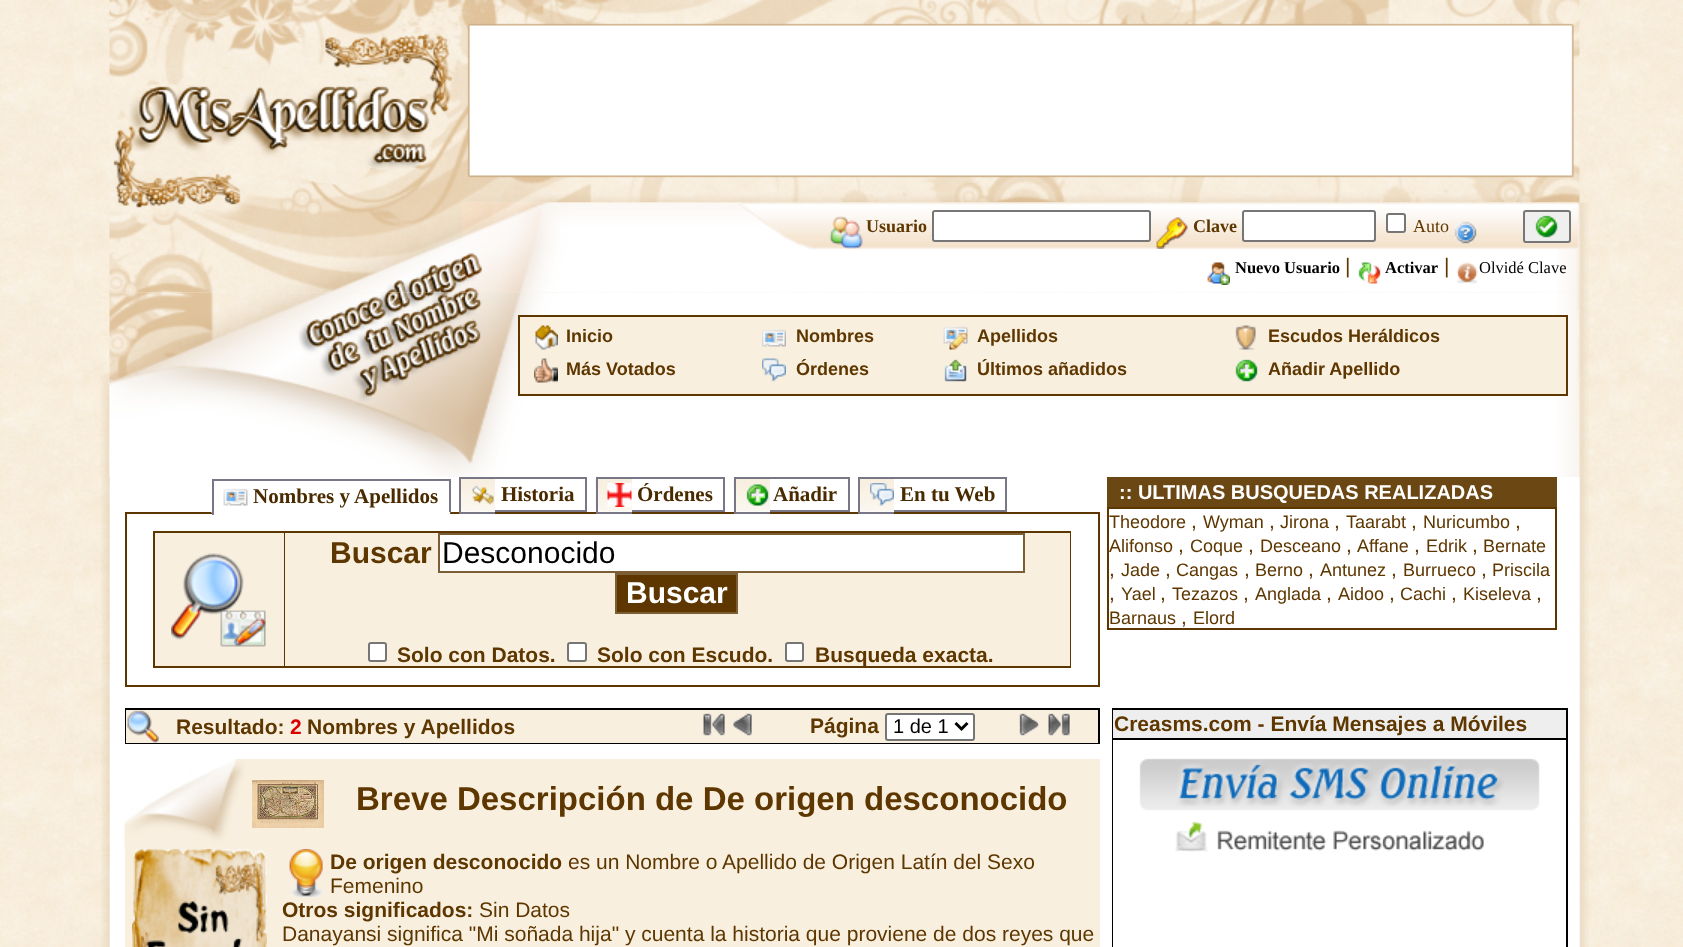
<?xml version="1.0" encoding="UTF-8"?>
<svg xmlns="http://www.w3.org/2000/svg" xmlns:xlink="http://www.w3.org/1999/xlink" width="1683" height="947">
  <rect width="100%" height="100%" fill="#ffffff" />
  <image x="0" y="0" width="1683" height="947" xlink:href="image1.png" />
  <image x="109" y="0" width="353" height="293" xlink:href="image2.png" />
  <image x="462" y="0" width="1118" height="203" xlink:href="image3.png" />
  <image x="462" y="202" width="1118" height="91" xlink:href="image4.png" />
  <image x="829" y="216" width="34" height="33" xlink:href="image5.png" />
  <rect x="933" y="211" width="217" height="30" rx="2" fill="#ffffff" stroke="#767676" stroke-width="2" />
  <image x="1156" y="217" width="32" height="32" xlink:href="image6.png" />
  <rect x="1243" y="211" width="132" height="30" rx="2" fill="#ffffff" stroke="#767676" stroke-width="2" />
  <rect x="1387" y="214" width="18" height="18" rx="2" fill="#ffffff" stroke="#767676" stroke-width="2" />
  <image x="1454" y="221" width="23" height="23" xlink:href="image7.png" />
  <rect x="1524" y="211" width="46" height="31" rx="2" fill="#efefef" stroke="#767676" stroke-width="2" />
  <image x="1535" y="215" width="23" height="23" xlink:href="image8.png" />
  <image x="1207" y="262" width="23" height="23" xlink:href="image9.png" />
  <image x="1358" y="262" width="23" height="22" xlink:href="image10.png" />
  <image x="1456" y="262" width="22" height="22" xlink:href="image11.png" />
  <image x="1579" y="202" width="10" height="91" xlink:href="image12.png" />
  <image x="100" y="373" width="10" height="104" xlink:href="image24.png" />
  <image x="109" y="292" width="353" height="185" xlink:href="image13.png" />
  <image x="462" y="292" width="1118" height="185" xlink:href="image14.png" />
  <rect x="519" y="316" width="1048" height="79" fill="#f8efdf" stroke="#5e3700" stroke-width="2" />
  <image x="535" y="325" width="23" height="25" xlink:href="image15.png" />
  <image x="762" y="329" width="24" height="18" xlink:href="image16.png" />
  <image x="943" y="326" width="25" height="24" xlink:href="image17.png" />
  <image x="1235" y="325" width="21" height="25" xlink:href="image18.png" />
  <image x="534" y="358" width="24" height="25" xlink:href="image19.png" />
  <image x="762" y="358" width="24" height="24" xlink:href="image20.png" />
  <image x="944" y="359" width="23" height="23" xlink:href="image21.png" />
  <image x="1235" y="359" width="23" height="23" xlink:href="image22.png" />
  <image x="1579" y="292" width="10" height="185" xlink:href="image23.png" />
  <image x="101" y="477" width="9" height="470" xlink:href="image25.png" />
  <rect x="110" y="477" width="1470" height="470" fill="#ffffff" />
  <image x="461" y="479" width="34" height="33" xlink:href="image26.png" />
  <image x="595" y="478" width="37" height="34" xlink:href="image27.png" />
  <image x="733" y="478" width="37" height="34" xlink:href="image27.png" />
  <image x="860" y="479" width="34" height="33" xlink:href="image26.png" />
  <image x="223" y="488" width="25" height="18" xlink:href="image28.png" />
  <rect x="126" y="513" width="973" height="173" fill="none" stroke="#5e3700" stroke-width="2" />
  <rect x="214" y="512" width="34" height="2" fill="#ffffff" />
  <rect x="212" y="479" width="238" height="2" fill="#777788" />
  <image x="211" y="512" width="37" height="1" xlink:href="image33.png" />
  <rect x="212" y="479" width="2" height="36" fill="#777788" />
  <rect x="449" y="479" width="2" height="34" fill="#777788" />
  <rect x="248" y="512" width="202" height="2" fill="#ffffff" />
  <image x="472" y="485" width="22" height="20" xlink:href="image29.png" />
  <rect x="459" y="477" width="128" height="2" fill="#777788" />
  <rect x="459" y="512" width="36" height="2" fill="#777788" />
  <rect x="459" y="477" width="2" height="36" fill="#777788" />
  <rect x="585" y="477" width="2" height="35" fill="#777788" />
  <rect x="495" y="510" width="92" height="2" fill="#777788" />
  <image x="607" y="483" width="25" height="24" xlink:href="image30.png" />
  <rect x="596" y="477" width="129" height="2" fill="#777788" />
  <rect x="596" y="512" width="36" height="2" fill="#777788" />
  <rect x="596" y="477" width="2" height="36" fill="#777788" />
  <rect x="723" y="477" width="2" height="35" fill="#777788" />
  <rect x="632" y="510" width="93" height="2" fill="#777788" />
  <image x="746" y="484" width="23" height="22" xlink:href="image31.png" />
  <rect x="734" y="477" width="115" height="2" fill="#777788" />
  <rect x="734" y="512" width="36" height="2" fill="#777788" />
  <rect x="734" y="477" width="2" height="36" fill="#777788" />
  <rect x="848" y="477" width="2" height="35" fill="#777788" />
  <rect x="770" y="510" width="79" height="2" fill="#777788" />
  <image x="870" y="483" width="24" height="23" xlink:href="image32.png" />
  <rect x="858" y="477" width="149" height="2" fill="#777788" />
  <rect x="858" y="512" width="36" height="2" fill="#777788" />
  <rect x="858" y="477" width="2" height="36" fill="#777788" />
  <rect x="1005" y="477" width="2" height="35" fill="#777788" />
  <rect x="894" y="510" width="113" height="2" fill="#777788" />
  <rect x="153" y="531" width="918" height="137" fill="#5e3700" />
  <rect x="155" y="533" width="129" height="133" fill="#f8efdf" />
  <image x="171" y="553" width="95" height="94" xlink:href="image34.png" />
  <rect x="285" y="533" width="785" height="133" fill="#f8efdf" />
  <rect x="439" y="534" width="585" height="38" fill="#ffffff" stroke="#7c5e34" stroke-width="2" />
  <rect x="616" y="574" width="121" height="39" fill="#5e3700" stroke="#7c5e34" stroke-width="2" />
  <rect x="369" y="643" width="17" height="18" rx="2" fill="#ffffff" stroke="#767676" stroke-width="2" />
  <rect x="568" y="643" width="18" height="18" rx="2" fill="#ffffff" stroke="#767676" stroke-width="2" />
  <rect x="786" y="643" width="17" height="18" rx="2" fill="#ffffff" stroke="#767676" stroke-width="2" />
  <rect x="1107" y="477" width="450" height="30" fill="#6b4714" />
  <rect x="1108" y="508" width="448" height="121" fill="none" stroke="#5e3700" stroke-width="2" />
  <rect x="125" y="708" width="975" height="36" fill="#000000" />
  <rect x="126" y="710" width="972" height="33" fill="#f8efdf" />
  <image x="127" y="710" width="32" height="33" xlink:href="image35.png" />
  <image x="703" y="713" width="22" height="23" xlink:href="image36.png" />
  <image x="733" y="713" width="19" height="23" xlink:href="image37.png" />
  <rect x="886" y="714" width="88" height="26" rx="2" fill="#ffffff" stroke="#767676" stroke-width="2" />
  <path d="M 955.5 723 l 6 6 l 6 -6" fill="none" stroke="#000000" stroke-width="3" />
  <image x="1019" y="713" width="20" height="23" xlink:href="image38.png" />
  <image x="1048" y="713" width="22" height="23" xlink:href="image39.png" />
  <rect x="125" y="759" width="975" height="188" fill="#f8efdf" />
  <image x="124" y="759" width="120" height="90" xlink:href="image40.png" />
  <image x="252" y="780" width="72" height="48" xlink:href="image41.png" />
  <image x="132" y="849" width="135" height="98" xlink:href="image42.png" />
  <image x="289" y="849" width="34" height="48" xlink:href="image43.png" />
  <rect x="1112" y="708" width="456" height="239" fill="#000000" />
  <rect x="1113" y="710" width="453" height="28" fill="#eeeeee" />
  <rect x="1113" y="740" width="453" height="207" fill="#ffffff" />
  <image x="1139" y="758" width="401" height="94" xlink:href="image44.png" />
  <image x="1579" y="477" width="10" height="470" xlink:href="image45.png" />
  <text x="866" y="232" style="font-family: Liberation Serif; font-size: 18px; font-weight: bold; fill: #5e3700">Usuario</text>
  <text x="1193" y="232" style="font-family: Liberation Serif; font-size: 18px; font-weight: bold; fill: #5e3700">Clave</text>
  <text x="1413" y="232" style="font-family: Liberation Serif; font-size: 18px; fill: #5e3700">Auto</text>
  <text x="1235" y="273" style="font-family: Liberation Serif; font-size: 16.5px; font-weight: bold; fill: #000000">Nuevo Usuario</text>
  <text x="1345" y="273" style="font-family: Liberation Sans; font-size: 21px; fill: #5e3700">|</text>
  <text x="1385" y="273" style="font-family: Liberation Serif; font-size: 16.5px; font-weight: bold; fill: #000000">Activar</text>
  <text x="1444" y="273" style="font-family: Liberation Sans; font-size: 21px; fill: #5e3700">|</text>
  <text x="1479" y="273" style="font-family: Liberation Serif; font-size: 16.5px; fill: #000000">Olvidé Clave</text>
  <text x="566" y="342" style="font-family: Liberation Sans; font-size: 18px; font-weight: bold; fill: #5e3700">Inicio</text>
  <text x="796" y="342" style="font-family: Liberation Sans; font-size: 18px; font-weight: bold; fill: #5e3700">Nombres</text>
  <text x="977" y="342" style="font-family: Liberation Sans; font-size: 18px; font-weight: bold; fill: #5e3700">Apellidos</text>
  <text x="1268" y="342" style="font-family: Liberation Sans; font-size: 18px; font-weight: bold; fill: #5e3700">Escudos Heráldicos</text>
  <text x="566" y="375" style="font-family: Liberation Sans; font-size: 18px; font-weight: bold; fill: #5e3700">Más Votados</text>
  <text x="796" y="375" style="font-family: Liberation Sans; font-size: 18px; font-weight: bold; fill: #5e3700">Órdenes</text>
  <text x="977" y="375" style="font-family: Liberation Sans; font-size: 18px; font-weight: bold; fill: #5e3700">Últimos añadidos</text>
  <text x="1268" y="375" style="font-family: Liberation Sans; font-size: 18px; font-weight: bold; fill: #5e3700">Añadir Apellido</text>
  <text x="253" y="503" style="font-family: Liberation Serif; font-size: 21px; font-weight: bold; fill: #4a2b00">Nombres y Apellidos</text>
  <text x="501" y="501" style="font-family: Liberation Serif; font-size: 21px; font-weight: bold; fill: #4a2b00">Historia</text>
  <text x="637" y="501" style="font-family: Liberation Serif; font-size: 21px; font-weight: bold; fill: #4a2b00">Órdenes</text>
  <text x="773" y="501" style="font-family: Liberation Serif; font-size: 21px; font-weight: bold; fill: #4a2b00">Añadir</text>
  <text x="900" y="501" style="font-family: Liberation Serif; font-size: 21px; font-weight: bold; fill: #4a2b00">En tu Web</text>
  <text x="330" y="563" style="font-family: Liberation Sans; font-size: 30px; font-weight: bold; fill: #5e3700">Buscar</text>
  <text x="442" y="563" style="font-family: Liberation Sans; font-size: 30px; fill: #000000">Desconocido</text>
  <text x="626" y="603" style="font-family: Liberation Sans; font-size: 30px; font-weight: bold; fill: #ffffff">Buscar</text>
  <text x="397" y="662" style="font-family: Liberation Sans; font-size: 21px; font-weight: bold; fill: #5e3700">Solo con Datos.</text>
  <text x="597" y="662" style="font-family: Liberation Sans; font-size: 21px; font-weight: bold; fill: #5e3700">Solo con Escudo.</text>
  <text x="815" y="662" style="font-family: Liberation Sans; font-size: 21px; font-weight: bold; fill: #5e3700">Busqueda exacta.</text>
  <text x="1119" y="499" style="font-family: Liberation Sans; font-size: 20px; font-weight: bold; fill: #ffffff">:: ULTIMAS BUSQUEDAS REALIZADAS</text>
  <text x="1109" y="528" style="font-family: Liberation Sans; font-size: 18px; fill: #5e3700">Theodore</text>
  <text x="1191" y="528" style="font-family: Liberation Sans; font-size: 21px; fill: #5e3700">,</text>
  <text x="1203" y="528" style="font-family: Liberation Sans; font-size: 18px; fill: #5e3700">Wyman</text>
  <text x="1269" y="528" style="font-family: Liberation Sans; font-size: 21px; fill: #5e3700">,</text>
  <text x="1280" y="528" style="font-family: Liberation Sans; font-size: 18px; fill: #5e3700">Jirona</text>
  <text x="1334" y="528" style="font-family: Liberation Sans; font-size: 21px; fill: #5e3700">,</text>
  <text x="1346" y="528" style="font-family: Liberation Sans; font-size: 18px; fill: #5e3700">Taarabt</text>
  <text x="1411" y="528" style="font-family: Liberation Sans; font-size: 21px; fill: #5e3700">,</text>
  <text x="1423" y="528" style="font-family: Liberation Sans; font-size: 18px; fill: #5e3700">Nuricumbo</text>
  <text x="1515" y="528" style="font-family: Liberation Sans; font-size: 21px; fill: #5e3700">,</text>
  <text x="1109" y="552" style="font-family: Liberation Sans; font-size: 18px; fill: #5e3700">Alifonso</text>
  <text x="1178" y="552" style="font-family: Liberation Sans; font-size: 21px; fill: #5e3700">,</text>
  <text x="1190" y="552" style="font-family: Liberation Sans; font-size: 18px; fill: #5e3700">Coque</text>
  <text x="1248" y="552" style="font-family: Liberation Sans; font-size: 21px; fill: #5e3700">,</text>
  <text x="1260" y="552" style="font-family: Liberation Sans; font-size: 18px; fill: #5e3700">Desceano</text>
  <text x="1346" y="552" style="font-family: Liberation Sans; font-size: 21px; fill: #5e3700">,</text>
  <text x="1357" y="552" style="font-family: Liberation Sans; font-size: 18px; fill: #5e3700">Affane</text>
  <text x="1414" y="552" style="font-family: Liberation Sans; font-size: 21px; fill: #5e3700">,</text>
  <text x="1426" y="552" style="font-family: Liberation Sans; font-size: 18px; fill: #5e3700">Edrik</text>
  <text x="1472" y="552" style="font-family: Liberation Sans; font-size: 21px; fill: #5e3700">,</text>
  <text x="1483" y="552" style="font-family: Liberation Sans; font-size: 18px; fill: #5e3700">Bernate</text>
  <text x="1109" y="576" style="font-family: Liberation Sans; font-size: 21px; fill: #5e3700">,</text>
  <text x="1121" y="576" style="font-family: Liberation Sans; font-size: 18px; fill: #5e3700">Jade</text>
  <text x="1165" y="576" style="font-family: Liberation Sans; font-size: 21px; fill: #5e3700">,</text>
  <text x="1176" y="576" style="font-family: Liberation Sans; font-size: 18px; fill: #5e3700">Cangas</text>
  <text x="1244" y="576" style="font-family: Liberation Sans; font-size: 21px; fill: #5e3700">,</text>
  <text x="1255" y="576" style="font-family: Liberation Sans; font-size: 18px; fill: #5e3700">Berno</text>
  <text x="1308" y="576" style="font-family: Liberation Sans; font-size: 21px; fill: #5e3700">,</text>
  <text x="1320" y="576" style="font-family: Liberation Sans; font-size: 18px; fill: #5e3700">Antunez</text>
  <text x="1391" y="576" style="font-family: Liberation Sans; font-size: 21px; fill: #5e3700">,</text>
  <text x="1403" y="576" style="font-family: Liberation Sans; font-size: 18px; fill: #5e3700">Burrueco</text>
  <text x="1481" y="576" style="font-family: Liberation Sans; font-size: 21px; fill: #5e3700">,</text>
  <text x="1492" y="576" style="font-family: Liberation Sans; font-size: 18px; fill: #5e3700">Priscila</text>
  <text x="1109" y="600" style="font-family: Liberation Sans; font-size: 21px; fill: #5e3700">,</text>
  <text x="1121" y="600" style="font-family: Liberation Sans; font-size: 18px; fill: #5e3700">Yael</text>
  <text x="1160" y="600" style="font-family: Liberation Sans; font-size: 21px; fill: #5e3700">,</text>
  <text x="1172" y="600" style="font-family: Liberation Sans; font-size: 18px; fill: #5e3700">Tezazos</text>
  <text x="1243" y="600" style="font-family: Liberation Sans; font-size: 21px; fill: #5e3700">,</text>
  <text x="1255" y="600" style="font-family: Liberation Sans; font-size: 18px; fill: #5e3700">Anglada</text>
  <text x="1326" y="600" style="font-family: Liberation Sans; font-size: 21px; fill: #5e3700">,</text>
  <text x="1338" y="600" style="font-family: Liberation Sans; font-size: 18px; fill: #5e3700">Aidoo</text>
  <text x="1389" y="600" style="font-family: Liberation Sans; font-size: 21px; fill: #5e3700">,</text>
  <text x="1400" y="600" style="font-family: Liberation Sans; font-size: 18px; fill: #5e3700">Cachi</text>
  <text x="1451" y="600" style="font-family: Liberation Sans; font-size: 21px; fill: #5e3700">,</text>
  <text x="1463" y="600" style="font-family: Liberation Sans; font-size: 18px; fill: #5e3700">Kiseleva</text>
  <text x="1536" y="600" style="font-family: Liberation Sans; font-size: 21px; fill: #5e3700">,</text>
  <text x="1109" y="624" style="font-family: Liberation Sans; font-size: 18px; fill: #5e3700">Barnaus</text>
  <text x="1181" y="624" style="font-family: Liberation Sans; font-size: 21px; fill: #5e3700">,</text>
  <text x="1193" y="624" style="font-family: Liberation Sans; font-size: 18px; fill: #5e3700">Elord</text>
  <text x="176" y="734" style="font-family: Liberation Sans; font-size: 21px; font-weight: bold; fill: #5e3700">Resultado:</text>
  <text x="290" y="734" style="font-family: Liberation Sans; font-size: 21px; font-weight: bold; fill: #dd0000">2</text>
  <text x="307" y="734" style="font-family: Liberation Sans; font-size: 21px; font-weight: bold; fill: #5e3700">Nombres y Apellidos</text>
  <text x="810" y="733" style="font-family: Liberation Sans; font-size: 21px; font-weight: bold; fill: #5e3700">Página</text>
  <text x="893" y="733" style="font-family: Liberation Sans; font-size: 20px; fill: #000000">1 de 1</text>
  <text x="356" y="810" style="font-family: Liberation Sans; font-size: 33px; font-weight: bold; fill: #5e3700">Breve Descripción de De origen desconocido</text>
  <text x="330" y="869" style="font-family: Liberation Sans; font-size: 21px; font-weight: bold; fill: #5e3700">De origen desconocido</text>
  <text x="568" y="869" style="font-family: Liberation Sans; font-size: 21px; fill: #5e3700">es un Nombre o Apellido de Origen Latín del Sexo</text>
  <text x="330" y="893" style="font-family: Liberation Sans; font-size: 21px; fill: #5e3700">Femenino</text>
  <text x="282" y="917" style="font-family: Liberation Sans; font-size: 21px; font-weight: bold; fill: #5e3700">Otros significados:</text>
  <text x="479" y="917" style="font-family: Liberation Sans; font-size: 21px; fill: #5e3700">Sin Datos</text>
  <text x="282" y="941" style="font-family: Liberation Sans; font-size: 21px; fill: #5e3700">Danayansi significa "Mi soñada hija" y cuenta la historia que proviene de dos reyes que</text>
  <text x="1114" y="731" style="font-family: Liberation Sans; font-size: 21px; font-weight: bold; fill: #5e3700">Creasms.com - Envía Mensajes a Móviles</text>
</svg>
